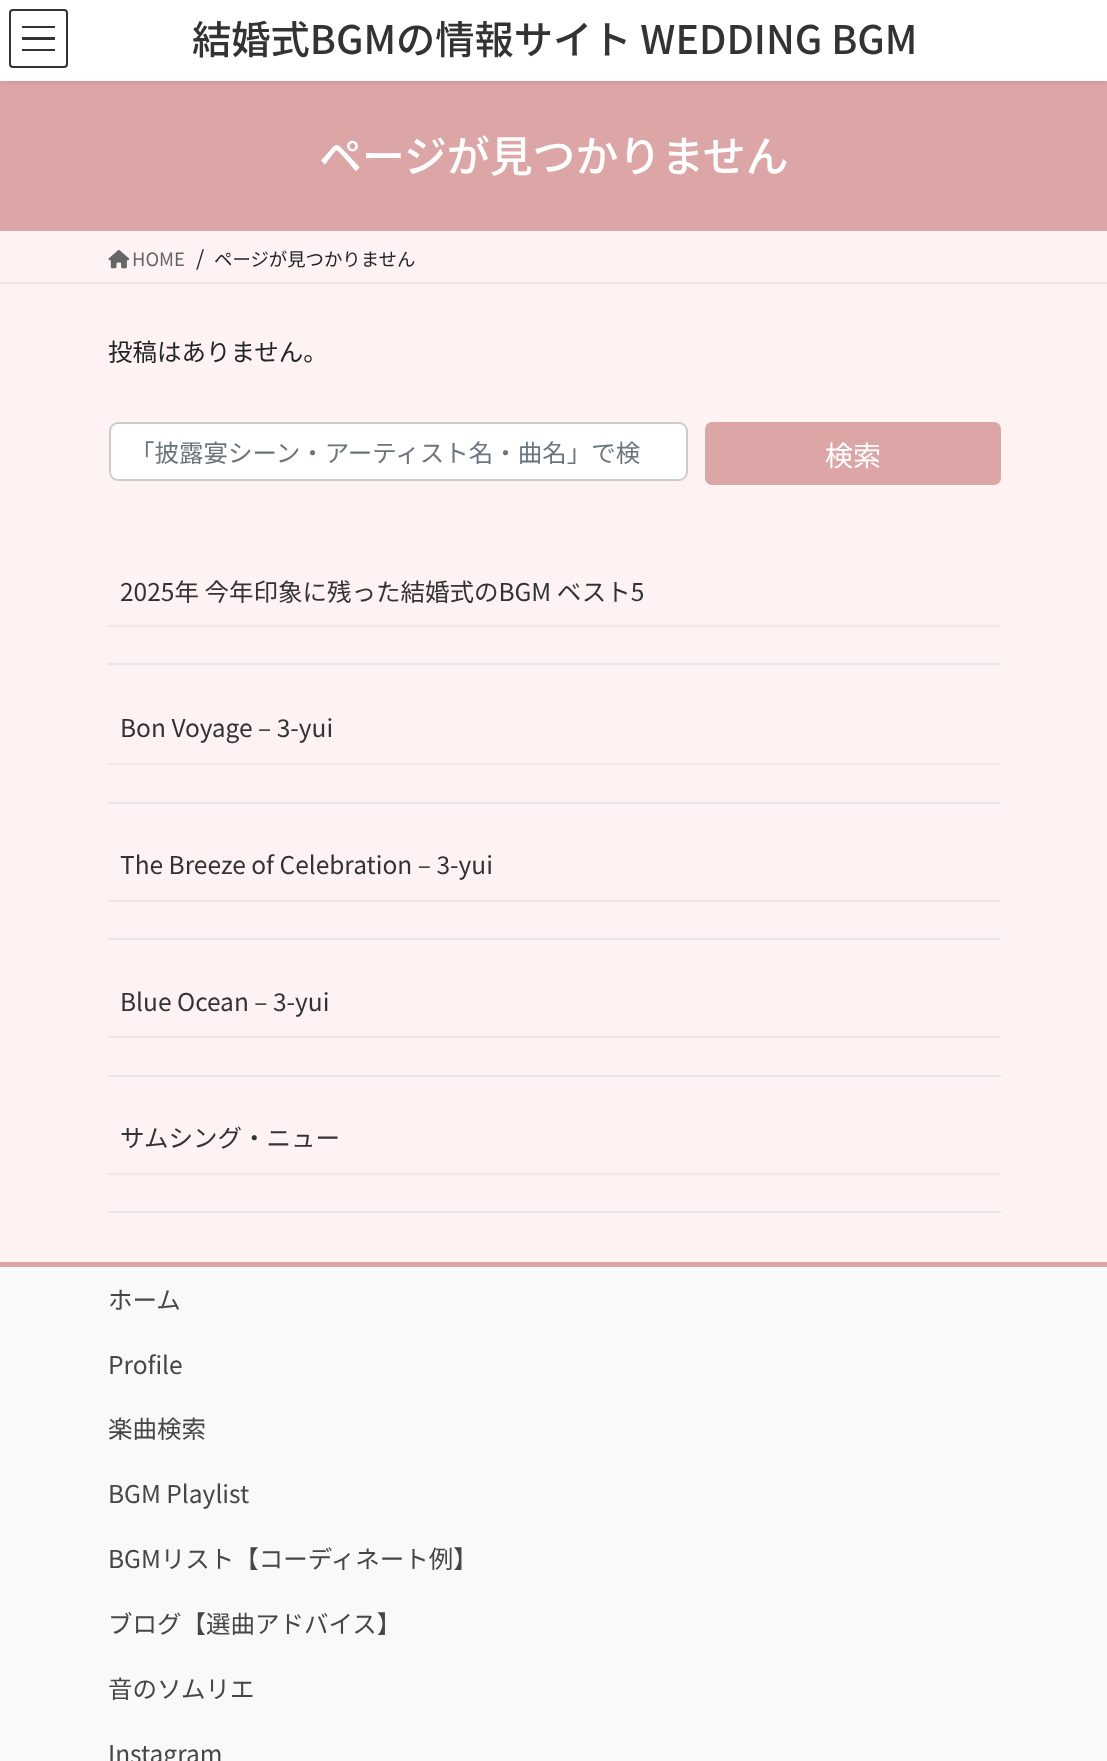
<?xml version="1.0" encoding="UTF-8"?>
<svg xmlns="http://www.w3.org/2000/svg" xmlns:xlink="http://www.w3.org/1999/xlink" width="1107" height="1761">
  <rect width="100%" height="100%" fill="#fff2f2" />
  <rect y="81" width="1107" height="150" fill="#dda6a6" />
  <rect y="2" width="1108" height="80" fill="#000000" fill-opacity="0.1" filter="blur(2.5px)" />
  <rect width="1107" height="81" fill="#ffffff" />
  <rect x="22" y="26" width="33" height="2" fill="#333333" />
  <rect x="22" y="37" width="33" height="3" fill="#333333" />
  <rect x="22" y="49" width="33" height="2" fill="#333333" />
  <rect x="10" y="10" width="57" height="57" rx="3" fill="none" stroke="#333333" stroke-width="2" />
  <rect y="282" width="1107" height="2" fill="#f2e6e6" />
  <image x="108" y="249" width="22" height="20" xlink:href="image1.png" />
  <rect x="110" y="423" width="577" height="57" rx="8" fill="#ffffff" stroke="#cccccc" stroke-width="2" />
  <rect x="705" y="422" width="296" height="63" rx="7" fill="#dda6a6" />
  <rect x="109" y="663" width="892" height="2" fill="#e5e5e5" />
  <rect x="109" y="625" width="892" height="2" fill="#f2e6e6" />
  <rect x="109" y="802" width="892" height="2" fill="#e5e5e5" />
  <rect x="109" y="763" width="892" height="2" fill="#f2e6e6" />
  <rect x="109" y="938" width="892" height="2" fill="#e5e5e5" />
  <rect x="109" y="900" width="892" height="2" fill="#f2e6e6" />
  <rect x="109" y="1075" width="892" height="2" fill="#e5e5e5" />
  <rect x="109" y="1036" width="892" height="2" fill="#f2e6e6" />
  <rect x="109" y="1211" width="892" height="2" fill="#e5e5e5" />
  <rect x="109" y="1173" width="892" height="2" fill="#f2e6e6" />
  <rect y="1267" width="1107" height="494" fill="#f9f9f9" />
  <rect y="1262" width="1107" height="5" fill="#dda6a6" />
  <text x="192" y="54" style="font-family: Noto Sans JP; font-size: 39.25px; font-weight: 500; fill: #333333">結婚式BGMの情報サイト WEDDING BGM</text>
  <text x="319" y="172" style="font-family: Noto Sans JP; font-size: 42.9px; font-weight: 500; fill: #ffffff">ページが見つかりません</text>
  <text x="132" y="266" style="font-family: Noto Sans JP; font-size: 18.4px; fill: #666666">HOME</text>
  <text x="196" y="266" style="font-family: Noto Sans JP; font-size: 21px; fill: #212529">/</text>
  <text x="214" y="266" style="font-family: Noto Sans JP; font-size: 18.4px; fill: #212529">ページが見つかりません</text>
  <text x="108" y="361" style="font-family: Noto Sans JP; font-size: 24.5px; fill: #212529">投稿はありません。</text>
  <text x="130" y="462" style="font-family: Noto Sans JP; font-size: 24.5px; fill: #6c757d">「披露宴シーン・アーティスト名・曲名」で検</text>
  <text x="825" y="466" style="font-family: Noto Sans JP; font-size: 28px; fill: #ffffff">検索</text>
  <text x="120" y="601" style="font-family: Noto Sans JP; font-size: 24.5px; fill: #333333">2025年 今年印象に残った結婚式のBGM ベスト5</text>
  <text x="120" y="737" style="font-family: Noto Sans JP; font-size: 24.5px; fill: #333333">Bon Voyage – 3-yui</text>
  <text x="120" y="874" style="font-family: Noto Sans JP; font-size: 24.5px; fill: #333333">The Breeze of Celebration – 3-yui</text>
  <text x="120" y="1011" style="font-family: Noto Sans JP; font-size: 24.5px; fill: #333333">Blue Ocean – 3-yui</text>
  <text x="120" y="1147" style="font-family: Noto Sans JP; font-size: 24.5px; fill: #333333">サムシング・ニュー</text>
  <text x="108" y="1309" style="font-family: Noto Sans JP; font-size: 24.5px; fill: #464646">ホーム</text>
  <text x="108" y="1374" style="font-family: Noto Sans JP; font-size: 24.5px; fill: #464646">Profile</text>
  <text x="108" y="1438" style="font-family: Noto Sans JP; font-size: 24.5px; fill: #464646">楽曲検索</text>
  <text x="108" y="1503" style="font-family: Noto Sans JP; font-size: 24.5px; fill: #464646">BGM Playlist</text>
  <text x="108" y="1568" style="font-family: Noto Sans JP; font-size: 24.5px; fill: #464646">BGMリスト【コーディネート例】</text>
  <text x="108" y="1633" style="font-family: Noto Sans JP; font-size: 24.5px; fill: #464646">ブログ【選曲アドバイス】</text>
  <text x="108" y="1698" style="font-family: Noto Sans JP; font-size: 24.5px; fill: #464646">音のソムリエ</text>
  <text x="108" y="1763" style="font-family: Noto Sans JP; font-size: 24.5px; fill: #464646">Instagram</text>
</svg>
